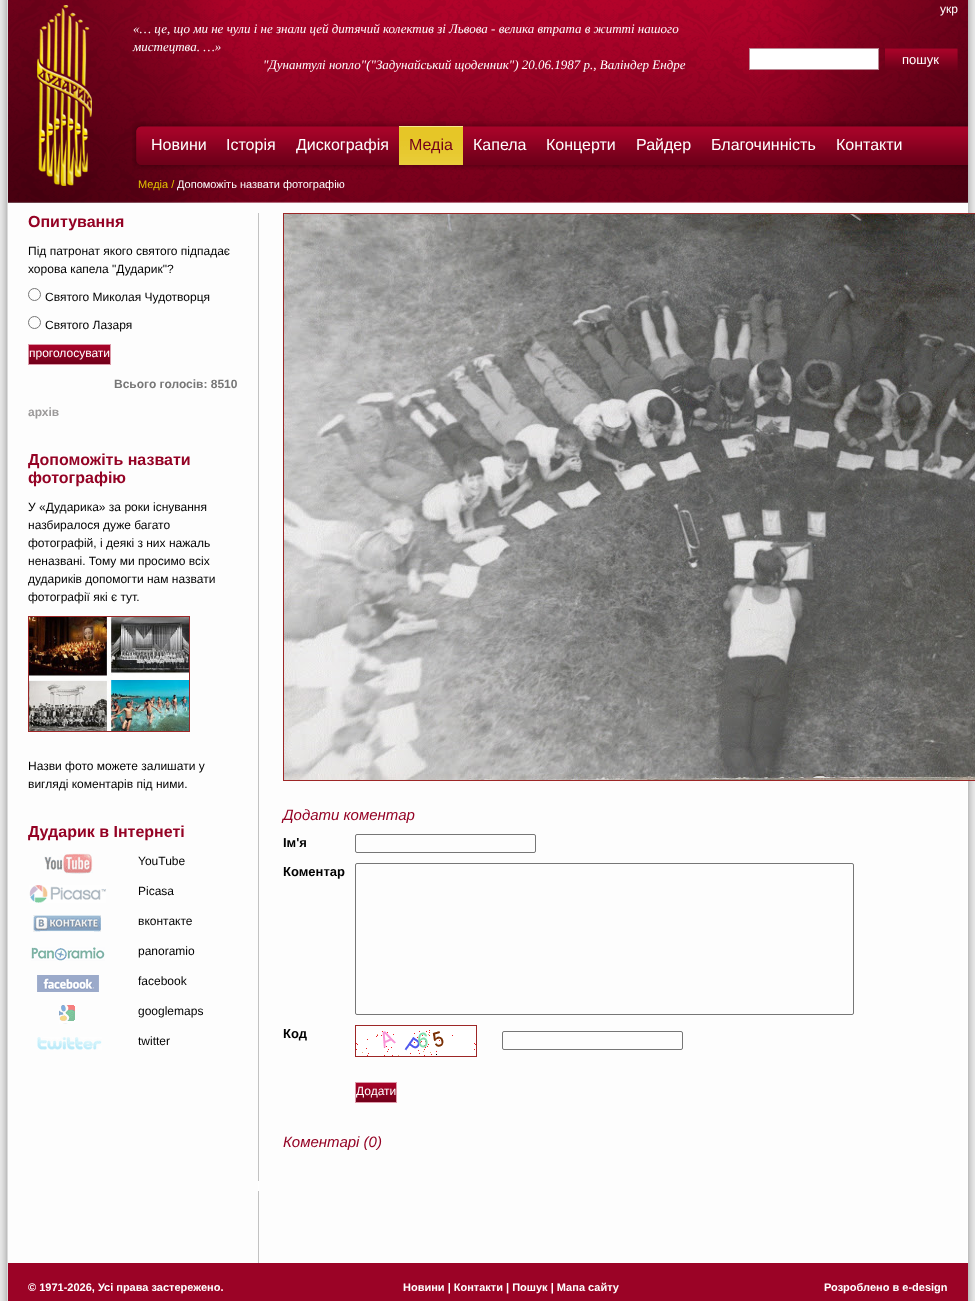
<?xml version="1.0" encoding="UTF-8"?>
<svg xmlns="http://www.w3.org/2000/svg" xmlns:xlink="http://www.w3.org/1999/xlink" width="975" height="1301">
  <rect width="100%" height="100%" fill="#ffffff" />
  <image x="0" y="0" width="975" height="1301" xlink:href="image1.png" />
  <rect x="967" y="203" width="1" height="1060" fill="#ffffff" />
  <rect x="258" y="213" width="1" height="1050" fill="#c2c2c2" />
  <image x="8" y="0" width="960" height="203" xlink:href="image2.png" />
  <image x="8" y="0" width="960" height="203" xlink:href="image3.png" />
  <image x="37" y="5" width="55" height="181" xlink:href="image4.png" />
  <rect x="749.5" y="48.5" width="129" height="21" fill="#ffffff" stroke="#b98692" />
  <image x="885" y="48" width="73" height="22" xlink:href="image5.png" />
  <image x="132" y="122" width="9" height="47" xlink:href="image6.png" />
  <image x="141" y="121" width="827" height="49" xlink:href="image7.png" />
  <image x="399" y="126" width="64" height="39" xlink:href="image8.png" />
  <circle cx="34.5" cy="294.5" r="6" fill="none" stroke="#767676" />
  <circle cx="34.5" cy="322.5" r="6" fill="none" stroke="#767676" />
  <image x="29" y="345" width="81" height="19" xlink:href="image9.png" />
  <rect x="28.5" y="344.5" width="82" height="20" fill="none" stroke="#dd9aa9" />
  <rect x="28.5" y="616.5" width="161" height="115" fill="none" stroke="#9d2626" />
  <image x="29" y="617" width="160" height="114" xlink:href="image10.png" />
  <image x="44" y="853" width="49" height="21" xlink:href="image11.png" />
  <image x="29" y="885" width="77" height="18" xlink:href="image12.png" />
  <image x="33" y="915" width="68" height="17" xlink:href="image13.png" />
  <image x="31" y="947" width="74" height="14" xlink:href="image14.png" />
  <image x="37" y="975" width="62" height="17" xlink:href="image15.png" />
  <image x="59" y="1005" width="16" height="19" xlink:href="image16.png" />
  <image x="37" y="1037" width="65" height="13" xlink:href="image17.png" />
  <rect x="283.5" y="213.5" width="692" height="567" fill="none" stroke="#9d2626" />
  <image x="284" y="214" width="691" height="566" xlink:href="image18.png" />
  <rect x="355.5" y="834.5" width="180" height="18" rx="1.5" fill="none" stroke="#767676" />
  <rect x="355.5" y="863.5" width="498" height="151" rx="1.5" fill="none" stroke="#767676" />
  <rect x="355.5" y="1025.5" width="121" height="31" fill="none" stroke="#9d2626" />
  <image x="356" y="1030" width="120" height="26" xlink:href="image19.png" />
  <rect x="502.5" y="1031.5" width="180" height="18" rx="1.5" fill="none" stroke="#767676" />
  <image x="356" y="1083" width="40" height="19" xlink:href="image20.png" />
  <rect x="355.5" y="1082.5" width="41" height="20" fill="none" stroke="#dd9aa9" />
  <rect x="258" y="1181" width="1" height="10" fill="#ffffff" />
  <rect x="8" y="1263" width="960" height="38" fill="#9b0326" />
  <text x="133" y="33" style="font-family: Liberation Serif; font-size: 13px; font-style: italic; fill: #ffffff">«… це, що ми не чули і не знали цей дитячий колектив зі Львова - велика втрата в житті нашого</text>
  <text x="133" y="51" style="font-family: Liberation Serif; font-size: 13px; font-style: italic; fill: #ffffff">мистецтва. …»</text>
  <text x="263" y="69" style="font-family: Liberation Serif; font-size: 13px; font-style: italic; fill: #ffffff">"Дунантулі нопло"("Задунайський щоденник") 20.06.1987 р., Валіндер Ендре</text>
  <text x="940" y="13" style="font-family: Liberation Sans; font-size: 12px; fill: #ffffff">укр</text>
  <text x="902" y="64" style="font-family: Liberation Sans; font-size: 13px; fill: #ffffff">пошук</text>
  <text x="151" y="150" style="font-family: Liberation Sans; font-size: 16px; fill: #ffffff">Новини</text>
  <text x="226" y="150" style="font-family: Liberation Sans; font-size: 16px; fill: #ffffff">Історія</text>
  <text x="296" y="150" style="font-family: Liberation Sans; font-size: 16px; fill: #ffffff">Дискографія</text>
  <text x="409" y="150" style="font-family: Liberation Sans; font-size: 16px; fill: #73001a">Медіа</text>
  <text x="473" y="150" style="font-family: Liberation Sans; font-size: 16px; fill: #ffffff">Капела</text>
  <text x="546" y="150" style="font-family: Liberation Sans; font-size: 16px; fill: #ffffff">Концерти</text>
  <text x="636" y="150" style="font-family: Liberation Sans; font-size: 16px; fill: #ffffff">Райдер</text>
  <text x="711" y="150" style="font-family: Liberation Sans; font-size: 16px; fill: #ffffff">Благочинність</text>
  <text x="836" y="150" style="font-family: Liberation Sans; font-size: 16px; fill: #ffffff">Контакти</text>
  <text x="138" y="188" style="font-family: Liberation Sans; font-size: 11px; fill: #e2c500">Медіа /</text>
  <text x="177" y="188" style="font-family: Liberation Sans; font-size: 11px; fill: #ffffff">Допоможіть назвати фотографію</text>
  <text x="28" y="227" style="font-family: Liberation Sans; font-size: 16px; font-weight: bold; fill: #940224">Опитування</text>
  <text x="28" y="255" style="font-family: Liberation Sans; font-size: 12px; fill: #000000">Під патронат якого святого підпадає</text>
  <text x="28" y="273" style="font-family: Liberation Sans; font-size: 12px; fill: #000000">хорова капела "Дударик"?</text>
  <text x="45" y="301" style="font-family: Liberation Sans; font-size: 12px; fill: #000000">Святого Миколая Чудотворця</text>
  <text x="45" y="329" style="font-family: Liberation Sans; font-size: 12px; fill: #000000">Святого Лазаря</text>
  <text x="29" y="357" style="font-family: Liberation Sans; font-size: 12px; fill: #ffffff">проголосувати</text>
  <text x="114" y="388" style="font-family: Liberation Sans; font-size: 12px; font-weight: bold; fill: #777777">Всього голосів: 8510</text>
  <text x="28" y="416" style="font-family: Liberation Sans; font-size: 12px; font-weight: bold; fill: #9c9a9a">архів</text>
  <text x="28" y="465" style="font-family: Liberation Sans; font-size: 16px; font-weight: bold; fill: #940224">Допоможіть назвати</text>
  <text x="28" y="483" style="font-family: Liberation Sans; font-size: 16px; font-weight: bold; fill: #940224">фотографію</text>
  <text x="28" y="511" style="font-family: Liberation Sans; font-size: 12px; fill: #000000">У «Дударика» за роки існування</text>
  <text x="28" y="529" style="font-family: Liberation Sans; font-size: 12px; fill: #000000">назбиралося дуже багато</text>
  <text x="28" y="547" style="font-family: Liberation Sans; font-size: 12px; fill: #000000">фотографій, і деякі з них нажаль</text>
  <text x="28" y="565" style="font-family: Liberation Sans; font-size: 12px; fill: #000000">неназвані. Тому ми просимо всіх</text>
  <text x="28" y="583" style="font-family: Liberation Sans; font-size: 12px; fill: #000000">дудариків допомогти нам назвати</text>
  <text x="28" y="601" style="font-family: Liberation Sans; font-size: 12px; fill: #000000">фотографії які є тут.</text>
  <text x="28" y="770" style="font-family: Liberation Sans; font-size: 12px; fill: #000000">Назви фото можете залишати у</text>
  <text x="28" y="788" style="font-family: Liberation Sans; font-size: 12px; fill: #000000">вигляді коментарів під ними.</text>
  <text x="28" y="837" style="font-family: Liberation Sans; font-size: 16px; font-weight: bold; fill: #940224">Дударик в Інтернеті</text>
  <text x="138" y="865" style="font-family: Liberation Sans; font-size: 12px; fill: #000000">YouTube</text>
  <text x="138" y="895" style="font-family: Liberation Sans; font-size: 12px; fill: #000000">Picasa</text>
  <text x="138" y="925" style="font-family: Liberation Sans; font-size: 12px; fill: #000000">вконтакте</text>
  <text x="138" y="955" style="font-family: Liberation Sans; font-size: 12px; fill: #000000">panoramio</text>
  <text x="138" y="985" style="font-family: Liberation Sans; font-size: 12px; fill: #000000">facebook</text>
  <text x="138" y="1015" style="font-family: Liberation Sans; font-size: 12px; fill: #000000">googlemaps</text>
  <text x="138" y="1045" style="font-family: Liberation Sans; font-size: 12px; fill: #000000">twitter</text>
  <text x="283" y="820" style="font-family: Liberation Sans; font-size: 15px; font-style: italic; fill: #940224">Додати коментар</text>
  <text x="283" y="847" style="font-family: Liberation Sans; font-size: 13px; font-weight: bold; fill: #000000">Ім'я</text>
  <text x="283" y="876" style="font-family: Liberation Sans; font-size: 13px; font-weight: bold; fill: #000000">Коментар</text>
  <text x="283" y="1038" style="font-family: Liberation Sans; font-size: 13px; font-weight: bold; fill: #000000">Код</text>
  <text x="356" y="1095" style="font-family: Liberation Sans; font-size: 12px; fill: #ffffff">Додати</text>
  <text x="283" y="1147" style="font-family: Liberation Sans; font-size: 15px; font-style: italic; fill: #940224">Коментарі (0)</text>
  <text x="28" y="1291" style="font-family: Liberation Sans; font-size: 11px; font-weight: bold; fill: #ffffff">© 1971-2026, Усі права застережено.</text>
  <text x="403" y="1291" style="font-family: Liberation Sans; font-size: 11px; font-weight: bold; fill: #ffffff">Новини | Контакти | Пошук | Мапа сайту</text>
  <text x="824" y="1291" style="font-family: Liberation Sans; font-size: 11px; font-weight: bold; fill: #ffffff">Розроблено в e-design</text>
</svg>
